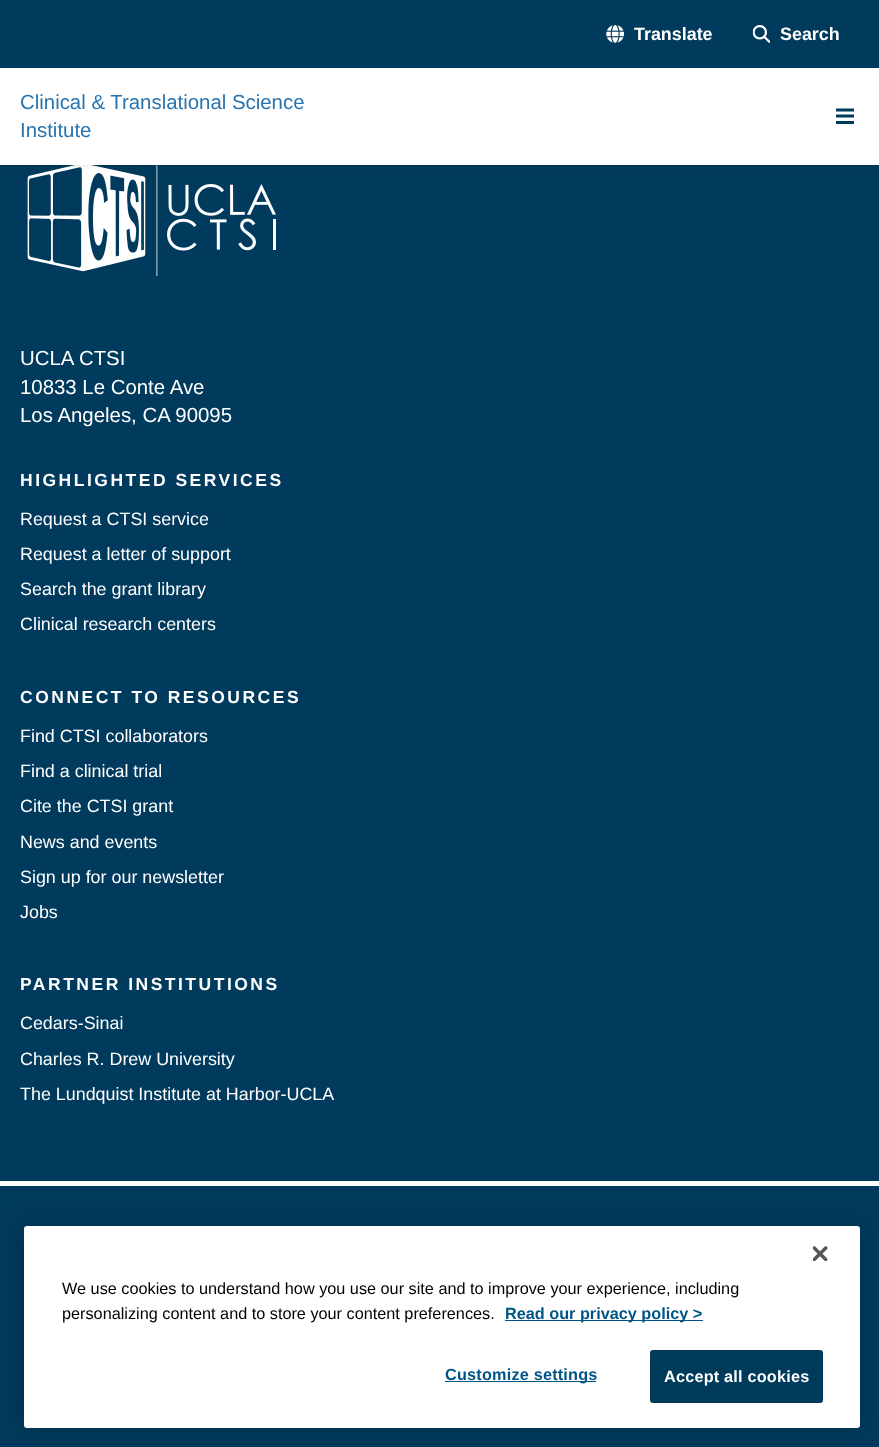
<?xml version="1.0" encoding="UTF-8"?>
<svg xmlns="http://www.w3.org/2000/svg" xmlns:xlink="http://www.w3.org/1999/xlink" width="879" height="1447">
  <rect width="100%" height="100%" fill="#003a5c" />
  <image x="27" y="165" width="249" height="112" xlink:href="image3.png" />
  <rect y="1" width="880" height="165" fill="#000000" fill-opacity="0.1" filter="blur(2px)" />
  <rect y="68" width="879" height="97" fill="#ffffff" />
  <rect width="879" height="68" fill="#003a5c" />
  <image x="606" y="25" width="18" height="18" xlink:href="image1.png" />
  <image x="753" y="25" width="17" height="18" xlink:href="image2.png" />
  <path d="M 836 110 h 18 m -18 6 h 18" fill="none" stroke="#003a5c" stroke-width="3" />
  <rect x="836" y="121" width="18" height="3" fill="#003a5c" />
  <rect y="1181" width="879" height="5" fill="#ffffff" />
  <rect x="24" y="1226" width="836" height="202" rx="3" fill="#000000" fill-opacity="0.2" filter="blur(11px)" />
  <rect x="24" y="1226" width="836" height="202" rx="3" fill="#ffffff" />
  <image x="813" y="1246" width="15" height="15" xlink:href="image4.png" />
  <rect x="505" y="1320" width="198" height="1" fill="#005587" />
  <rect x="445" y="1381" width="151" height="1" fill="#005587" />
  <rect x="650.5" y="1350.5" width="172" height="52" rx="2" fill="#003b5c" stroke="#003b5c" />
  <text x="634" y="40" style="font-family: Liberation Sans; font-size: 17.9px; font-weight: bold; fill: #ffffff">Translate</text>
  <text x="780" y="40" style="font-family: Liberation Sans; font-size: 17.9px; font-weight: bold; fill: #ffffff">Search</text>
  <text x="20" y="109" style="font-family: Liberation Sans; font-size: 20.4px; fill: #2874af">Clinical &amp; Translational Science</text>
  <text x="20" y="137" style="font-family: Liberation Sans; font-size: 20.4px; fill: #2874af">Institute</text>
  <text x="20" y="365" style="font-family: Liberation Sans; font-size: 20.4px; fill: #ffffff">UCLA CTSI</text>
  <text x="20" y="394" style="font-family: Liberation Sans; font-size: 20.4px; fill: #ffffff">10833 Le Conte Ave</text>
  <text x="20" y="422" style="font-family: Liberation Sans; font-size: 20.4px; fill: #ffffff">Los Angeles, CA 90095</text>
  <text x="20" y="486" style="font-family: Liberation Sans; font-size: 17.5px; font-weight: bold; letter-spacing: 2.5px; fill: #ffffff">HIGHLIGHTED SERVICES</text>
  <text x="20" y="525" style="font-family: Liberation Sans; font-size: 17.9px; fill: #ffffff">Request a CTSI service</text>
  <text x="20" y="560" style="font-family: Liberation Sans; font-size: 17.9px; fill: #ffffff">Request a letter of support</text>
  <text x="20" y="595" style="font-family: Liberation Sans; font-size: 17.9px; fill: #ffffff">Search the grant library</text>
  <text x="20" y="630" style="font-family: Liberation Sans; font-size: 17.9px; fill: #ffffff">Clinical research centers</text>
  <text x="20" y="703" style="font-family: Liberation Sans; font-size: 17.5px; font-weight: bold; letter-spacing: 2.5px; fill: #ffffff">CONNECT TO RESOURCES</text>
  <text x="20" y="742" style="font-family: Liberation Sans; font-size: 17.9px; fill: #ffffff">Find CTSI collaborators</text>
  <text x="20" y="777" style="font-family: Liberation Sans; font-size: 17.9px; fill: #ffffff">Find a clinical trial</text>
  <text x="20" y="812" style="font-family: Liberation Sans; font-size: 17.9px; fill: #ffffff">Cite the CTSI grant</text>
  <text x="20" y="848" style="font-family: Liberation Sans; font-size: 17.9px; fill: #ffffff">News and events</text>
  <text x="20" y="883" style="font-family: Liberation Sans; font-size: 17.9px; fill: #ffffff">Sign up for our newsletter</text>
  <text x="20" y="918" style="font-family: Liberation Sans; font-size: 17.9px; fill: #ffffff">Jobs</text>
  <text x="20" y="990" style="font-family: Liberation Sans; font-size: 17.5px; font-weight: bold; letter-spacing: 2.5px; fill: #ffffff">PARTNER INSTITUTIONS</text>
  <text x="20" y="1029" style="font-family: Liberation Sans; font-size: 17.9px; fill: #ffffff">Cedars-Sinai</text>
  <text x="20" y="1065" style="font-family: Liberation Sans; font-size: 17.9px; fill: #ffffff">Charles R. Drew University</text>
  <text x="20" y="1100" style="font-family: Liberation Sans; font-size: 17.9px; fill: #ffffff">The Lundquist Institute at Harbor-UCLA</text>
  <text x="62" y="1294" style="font-family: Liberation Sans; font-size: 16.25px; fill: #000000">We use cookies to understand how you use our site and to improve your experience, including</text>
  <text x="62" y="1319" style="font-family: Liberation Sans; font-size: 16.25px; fill: #000000">personalizing content and to store your content preferences.</text>
  <text x="505" y="1319" style="font-family: Liberation Sans; font-size: 16.25px; font-weight: bold; fill: #005587">Read our privacy policy &gt;</text>
  <text x="445" y="1380" style="font-family: Liberation Sans; font-size: 16.25px; font-weight: bold; letter-spacing: 0.2px; fill: #005587">Customize settings</text>
  <text x="664" y="1382" style="font-family: Liberation Sans; font-size: 16.25px; font-weight: bold; letter-spacing: 0.2px; fill: #ffffff">Accept all cookies</text>
</svg>
